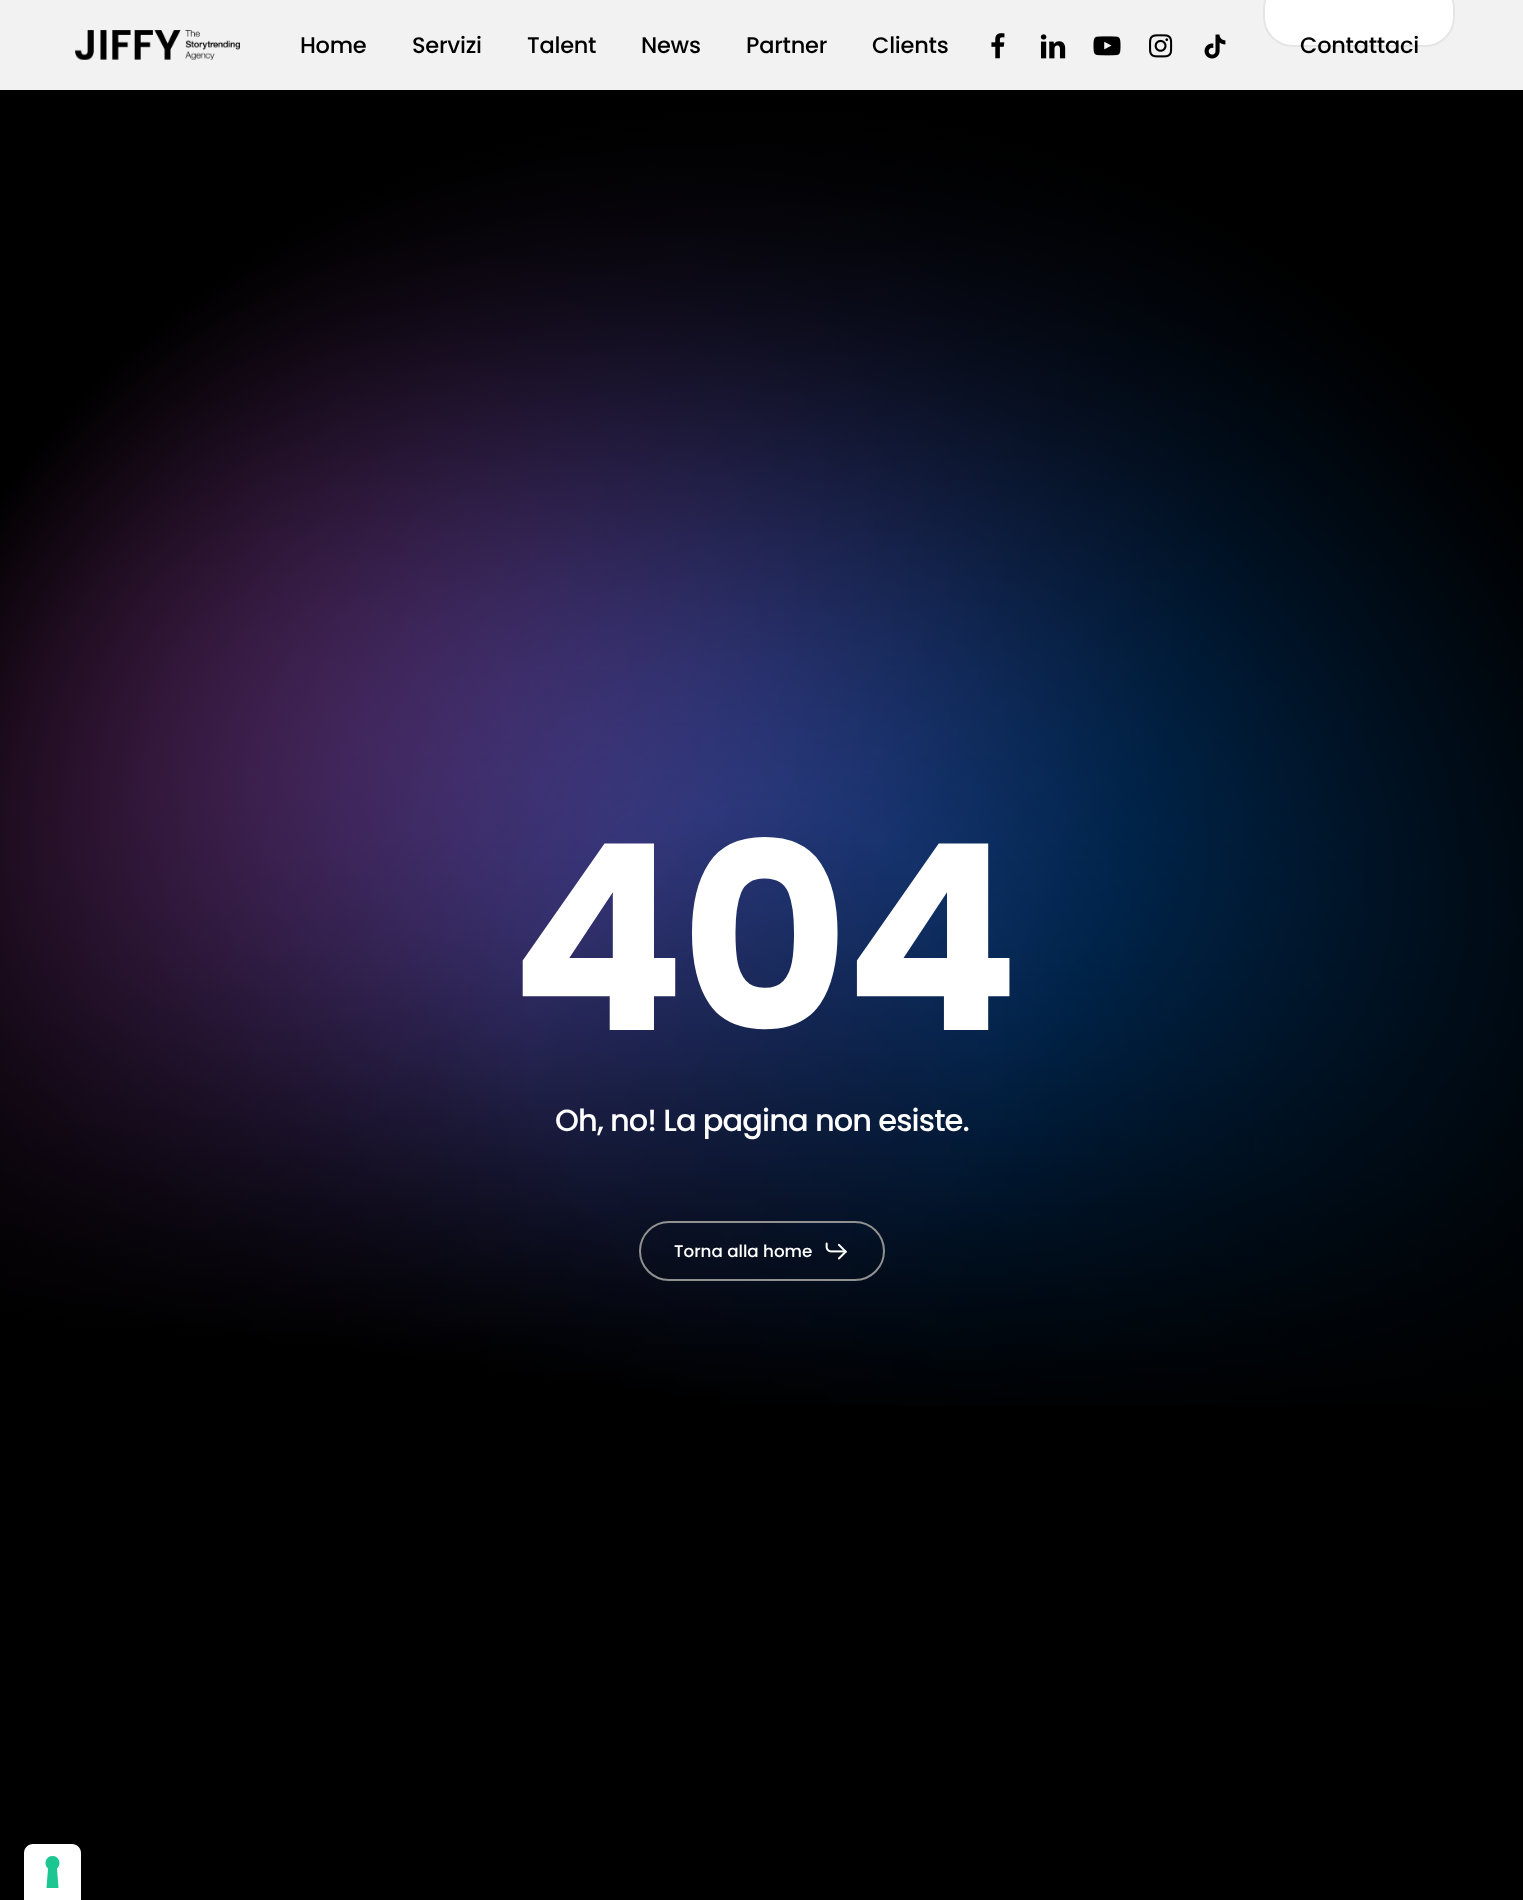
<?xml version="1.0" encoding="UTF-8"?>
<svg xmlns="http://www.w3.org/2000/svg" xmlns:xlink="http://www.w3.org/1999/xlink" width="1523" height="1900">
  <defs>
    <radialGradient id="g1" gradientUnits="userSpaceOnUse" cx="762" cy="1040" r="1218"><stop offset="0.19" stop-color="#000000" stop-opacity="0" /><stop offset="0.77" stop-color="#000000" /></radialGradient>
  </defs>
  <rect width="100%" height="100%" fill="#000000" />
  <rect width="1523" height="90" fill="#f2f2f2" />
  <image x="75" y="30" width="165" height="30" xlink:href="image1.png" />
  <image x="991" y="33" width="14" height="26" xlink:href="image2.png" />
  <image x="1040" y="34" width="26" height="25" xlink:href="image3.png" />
  <image x="1093" y="36" width="28" height="20" xlink:href="image4.png" />
  <image x="1149" y="34" width="24" height="24" xlink:href="image5.png" />
  <image x="1204" y="34" width="22" height="25" xlink:href="image6.png" />
  <rect x="1263" y="-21" width="192" height="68" rx="30" fill="#ffffff" />
  <rect x="1264" y="-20" width="190" height="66" rx="29" fill="none" stroke="#000000" stroke-opacity="0.1" stroke-width="2" />
  <image x="0" y="109" width="1523" height="1297" xlink:href="image7.png" />
  <rect y="109" width="1523" height="1297" fill="url(#g1)" />
  <rect x="640" y="1222" width="244" height="58" rx="29" fill="none" stroke="#919191" stroke-width="2" />
  <image x="825" y="1242" width="22" height="18" xlink:href="image8.png" />
  <path d="M 33 1844 h 39 c 5 0 9 4 9 9 v 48 h -57 v -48 c 0 -5 4 -9 9 -9 z" fill="#ffffff" />
  <path d="M 52.5 1856 c 6.5 0 9.5 8 4.5 12.5 l 1.5 19.5 h -12 l 1.5 -19.5 c -5 -4.5 -2 -12.5 4.5 -12.5 z" fill="#1cc691" fill-rule="evenodd" />
  <text x="300" y="53" style="font-family: Poppins; font-size: 22.5px; font-weight: 500; letter-spacing: -0.25px; fill: #000000">Home</text>
  <text x="412" y="53" style="font-family: Poppins; font-size: 22.5px; font-weight: 500; letter-spacing: -0.25px; fill: #000000">Servizi</text>
  <text x="527" y="53" style="font-family: Poppins; font-size: 22.5px; font-weight: 500; letter-spacing: -0.25px; fill: #000000">Talent</text>
  <text x="641" y="53" style="font-family: Poppins; font-size: 22.5px; font-weight: 500; letter-spacing: -0.25px; fill: #000000">News</text>
  <text x="746" y="53" style="font-family: Poppins; font-size: 22.5px; font-weight: 500; letter-spacing: -0.25px; fill: #000000">Partner</text>
  <text x="872" y="53" style="font-family: Poppins; font-size: 22.5px; font-weight: 500; letter-spacing: -0.25px; fill: #000000">Clients</text>
  <text x="1300" y="53" style="font-family: Poppins; font-size: 22.5px; font-weight: 500; letter-spacing: -0.25px; fill: #000000">Contattaci</text>
  <text x="510" y="1030" style="font-family: Poppins; font-size: 259px; font-weight: bold; letter-spacing: -5px; fill: #ffffff">404</text>
  <text x="555" y="1131" style="font-family: Poppins; font-size: 30.5px; font-weight: 500; letter-spacing: -0.9px; fill: #ffffff">Oh, no! La pagina non esiste.</text>
  <text x="674" y="1257" style="font-family: Poppins; font-size: 16.75px; font-weight: 500; fill: #ffffff">Torna alla home</text>
</svg>
